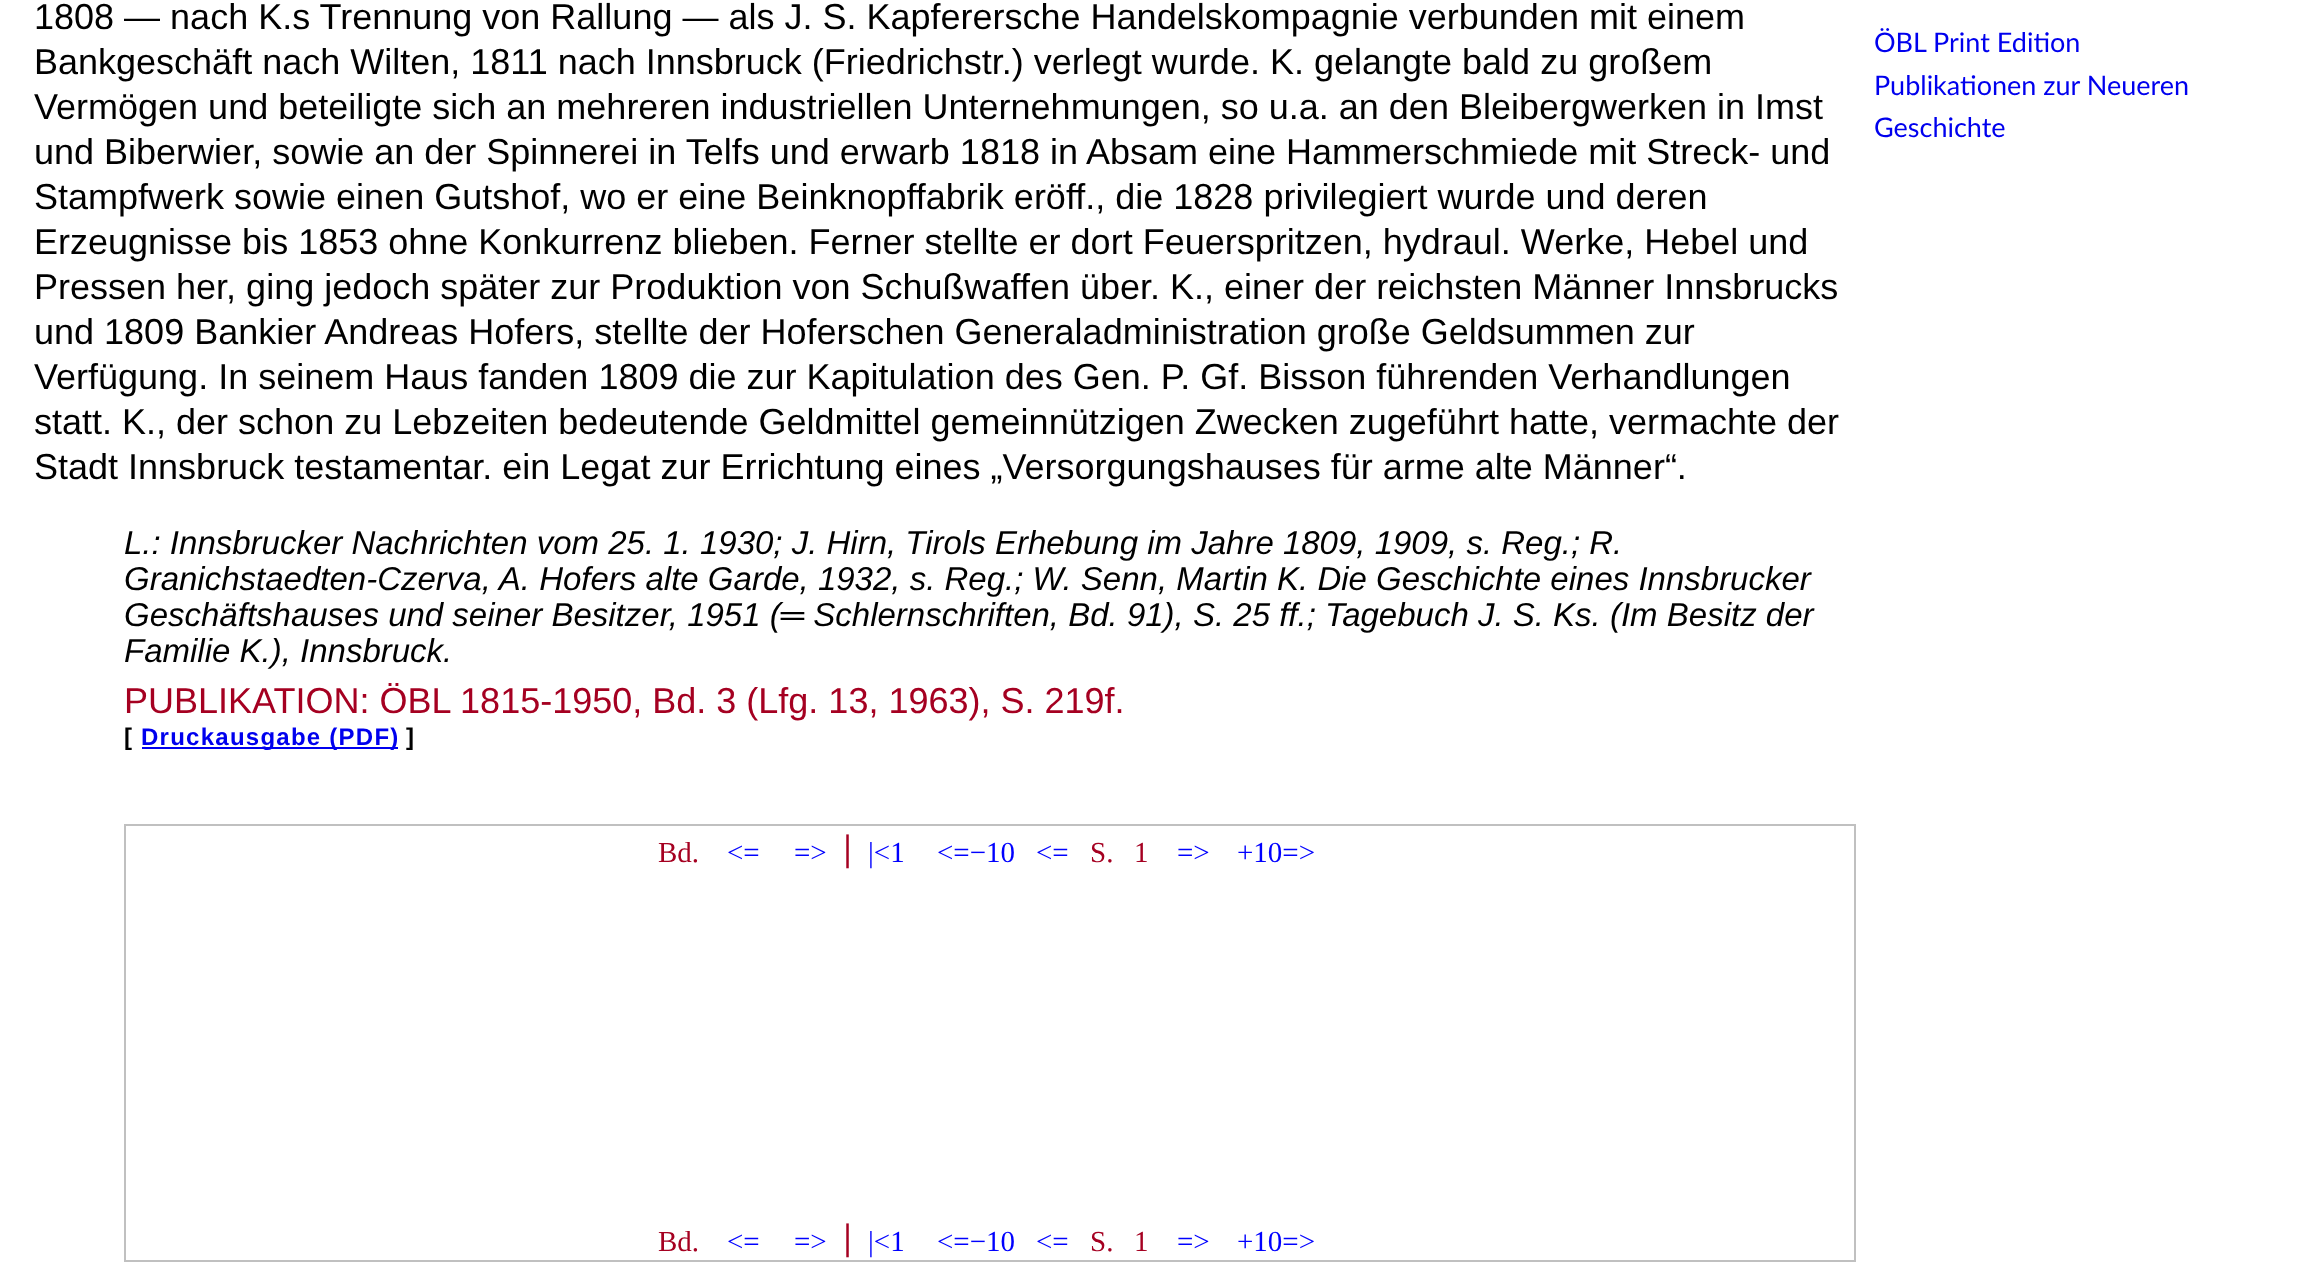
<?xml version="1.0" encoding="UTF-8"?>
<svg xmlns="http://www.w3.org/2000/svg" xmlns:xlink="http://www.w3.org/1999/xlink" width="2323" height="1284">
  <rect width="100%" height="100%" fill="#ffffff" />
  <rect x="142" y="747" width="256" height="2" fill="#0000ee" />
  <rect x="125" y="825" width="1730" height="436" fill="none" stroke="#c0c0c0" stroke-width="2" />
  <text x="34" y="29" style="font-family: Liberation Sans; font-size: 36px; fill: #000000">1808 — nach K.s Trennung von Rallung — als J. S. Kapferersche Handelskompagnie verbunden mit einem</text>
  <text x="34" y="74" style="font-family: Liberation Sans; font-size: 36px; fill: #000000">Bankgeschäft nach Wilten, 1811 nach Innsbruck (Friedrichstr.) verlegt wurde. K. gelangte bald zu großem</text>
  <text x="34" y="119" style="font-family: Liberation Sans; font-size: 36px; fill: #000000">Vermögen und beteiligte sich an mehreren industriellen Unternehmungen, so u.a. an den Bleibergwerken in Imst</text>
  <text x="34" y="164" style="font-family: Liberation Sans; font-size: 36px; fill: #000000">und Biberwier, sowie an der Spinnerei in Telfs und erwarb 1818 in Absam eine Hammerschmiede mit Streck- und</text>
  <text x="34" y="209" style="font-family: Liberation Sans; font-size: 36px; fill: #000000">Stampfwerk sowie einen Gutshof, wo er eine Beinknopffabrik eröff., die 1828 privilegiert wurde und deren</text>
  <text x="34" y="254" style="font-family: Liberation Sans; font-size: 36px; fill: #000000">Erzeugnisse bis 1853 ohne Konkurrenz blieben. Ferner stellte er dort Feuerspritzen, hydraul. Werke, Hebel und</text>
  <text x="34" y="299" style="font-family: Liberation Sans; font-size: 36px; fill: #000000">Pressen her, ging jedoch später zur Produktion von Schußwaffen über. K., einer der reichsten Männer Innsbrucks</text>
  <text x="34" y="344" style="font-family: Liberation Sans; font-size: 36px; fill: #000000">und 1809 Bankier Andreas Hofers, stellte der Hoferschen Generaladministration große Geldsummen zur</text>
  <text x="34" y="389" style="font-family: Liberation Sans; font-size: 36px; fill: #000000">Verfügung. In seinem Haus fanden 1809 die zur Kapitulation des Gen. P. Gf. Bisson führenden Verhandlungen</text>
  <text x="34" y="434" style="font-family: Liberation Sans; font-size: 36px; fill: #000000">statt. K., der schon zu Lebzeiten bedeutende Geldmittel gemeinnützigen Zwecken zugeführt hatte, vermachte der</text>
  <text x="34" y="479" style="font-family: Liberation Sans; font-size: 36px; fill: #000000">Stadt Innsbruck testamentar. ein Legat zur Errichtung eines „Versorgungshauses für arme alte Männer“.</text>
  <text x="124" y="554" style="font-family: Liberation Sans; font-size: 33px; font-style: italic; fill: #000000">L.: Innsbrucker Nachrichten vom 25. 1. 1930; J. Hirn, Tirols Erhebung im Jahre 1809, 1909, s. Reg.; R.</text>
  <text x="124" y="590" style="font-family: Liberation Sans; font-size: 33px; font-style: italic; fill: #000000">Granichstaedten-Czerva, A. Hofers alte Garde, 1932, s. Reg.; W. Senn, Martin K. Die Geschichte eines Innsbrucker</text>
  <text x="124" y="626" style="font-family: Liberation Sans; font-size: 33px; font-style: italic; fill: #000000">Geschäftshauses und seiner Besitzer, 1951 (═ Schlernschriften, Bd. 91), S. 25 ff.; Tagebuch J. S. Ks. (Im Besitz der</text>
  <text x="124" y="662" style="font-family: Liberation Sans; font-size: 33px; font-style: italic; fill: #000000">Familie K.), Innsbruck.</text>
  <text x="124" y="713" style="font-family: Liberation Sans; font-size: 36px; fill: #a50021">PUBLIKATION: ÖBL 1815-1950, Bd. 3 (Lfg. 13, 1963), S. 219f.</text>
  <text x="124" y="745" style="font-family: Liberation Sans; font-size: 24px; font-weight: bold; letter-spacing: 1.25px; fill: #000000">[</text>
  <text x="141" y="745" style="font-family: Liberation Sans; font-size: 24px; font-weight: bold; letter-spacing: 1.25px; fill: #0000ee">Druckausgabe (PDF)</text>
  <text x="406" y="745" style="font-family: Liberation Sans; font-size: 24px; font-weight: bold; letter-spacing: 1.25px; fill: #000000">]</text>
  <text x="658" y="862" style="font-family: Liberation Serif; font-size: 29px; fill: #a50021">Bd.</text>
  <text x="727" y="862" style="font-family: Liberation Serif; font-size: 29px; fill: #0000ff">&lt;=</text>
  <text x="794" y="862" style="font-family: Liberation Serif; font-size: 29px; fill: #0000ff">=&gt;</text>
  <text x="843" y="862" style="font-family: Lato; font-size: 36px; fill: #a50021">|</text>
  <text x="868" y="862" style="font-family: Liberation Serif; font-size: 29px; fill: #0000ff">|&lt;1</text>
  <text x="937" y="862" style="font-family: Liberation Serif; font-size: 29px; fill: #0000ff">&lt;=−10</text>
  <text x="1036" y="862" style="font-family: Liberation Serif; font-size: 29px; fill: #0000ff">&lt;=</text>
  <text x="1090" y="862" style="font-family: Liberation Serif; font-size: 29px; fill: #a50021">S.</text>
  <text x="1134" y="862" style="font-family: Liberation Serif; font-size: 29px; fill: #a50021">1</text>
  <text x="1177" y="862" style="font-family: Liberation Serif; font-size: 29px; fill: #0000ff">=&gt;</text>
  <text x="1237" y="862" style="font-family: Liberation Serif; font-size: 29px; fill: #0000ff">+10=&gt;</text>
  <text x="658" y="1251" style="font-family: Liberation Serif; font-size: 29px; fill: #a50021">Bd.</text>
  <text x="727" y="1251" style="font-family: Liberation Serif; font-size: 29px; fill: #0000ff">&lt;=</text>
  <text x="794" y="1251" style="font-family: Liberation Serif; font-size: 29px; fill: #0000ff">=&gt;</text>
  <text x="843" y="1251" style="font-family: Lato; font-size: 36px; fill: #a50021">|</text>
  <text x="868" y="1251" style="font-family: Liberation Serif; font-size: 29px; fill: #0000ff">|&lt;1</text>
  <text x="937" y="1251" style="font-family: Liberation Serif; font-size: 29px; fill: #0000ff">&lt;=−10</text>
  <text x="1036" y="1251" style="font-family: Liberation Serif; font-size: 29px; fill: #0000ff">&lt;=</text>
  <text x="1090" y="1251" style="font-family: Liberation Serif; font-size: 29px; fill: #a50021">S.</text>
  <text x="1134" y="1251" style="font-family: Liberation Serif; font-size: 29px; fill: #a50021">1</text>
  <text x="1177" y="1251" style="font-family: Liberation Serif; font-size: 29px; fill: #0000ff">=&gt;</text>
  <text x="1237" y="1251" style="font-family: Liberation Serif; font-size: 29px; fill: #0000ff">+10=&gt;</text>
  <text x="1874" y="52" style="font-family: Lato; font-size: 27px; fill: #0000ee">ÖBL Print Edition</text>
  <text x="1874" y="95" style="font-family: Lato; font-size: 27px; fill: #0000ee">Publikationen zur Neueren</text>
  <text x="1874" y="137" style="font-family: Lato; font-size: 27px; fill: #0000ee">Geschichte</text>
</svg>
